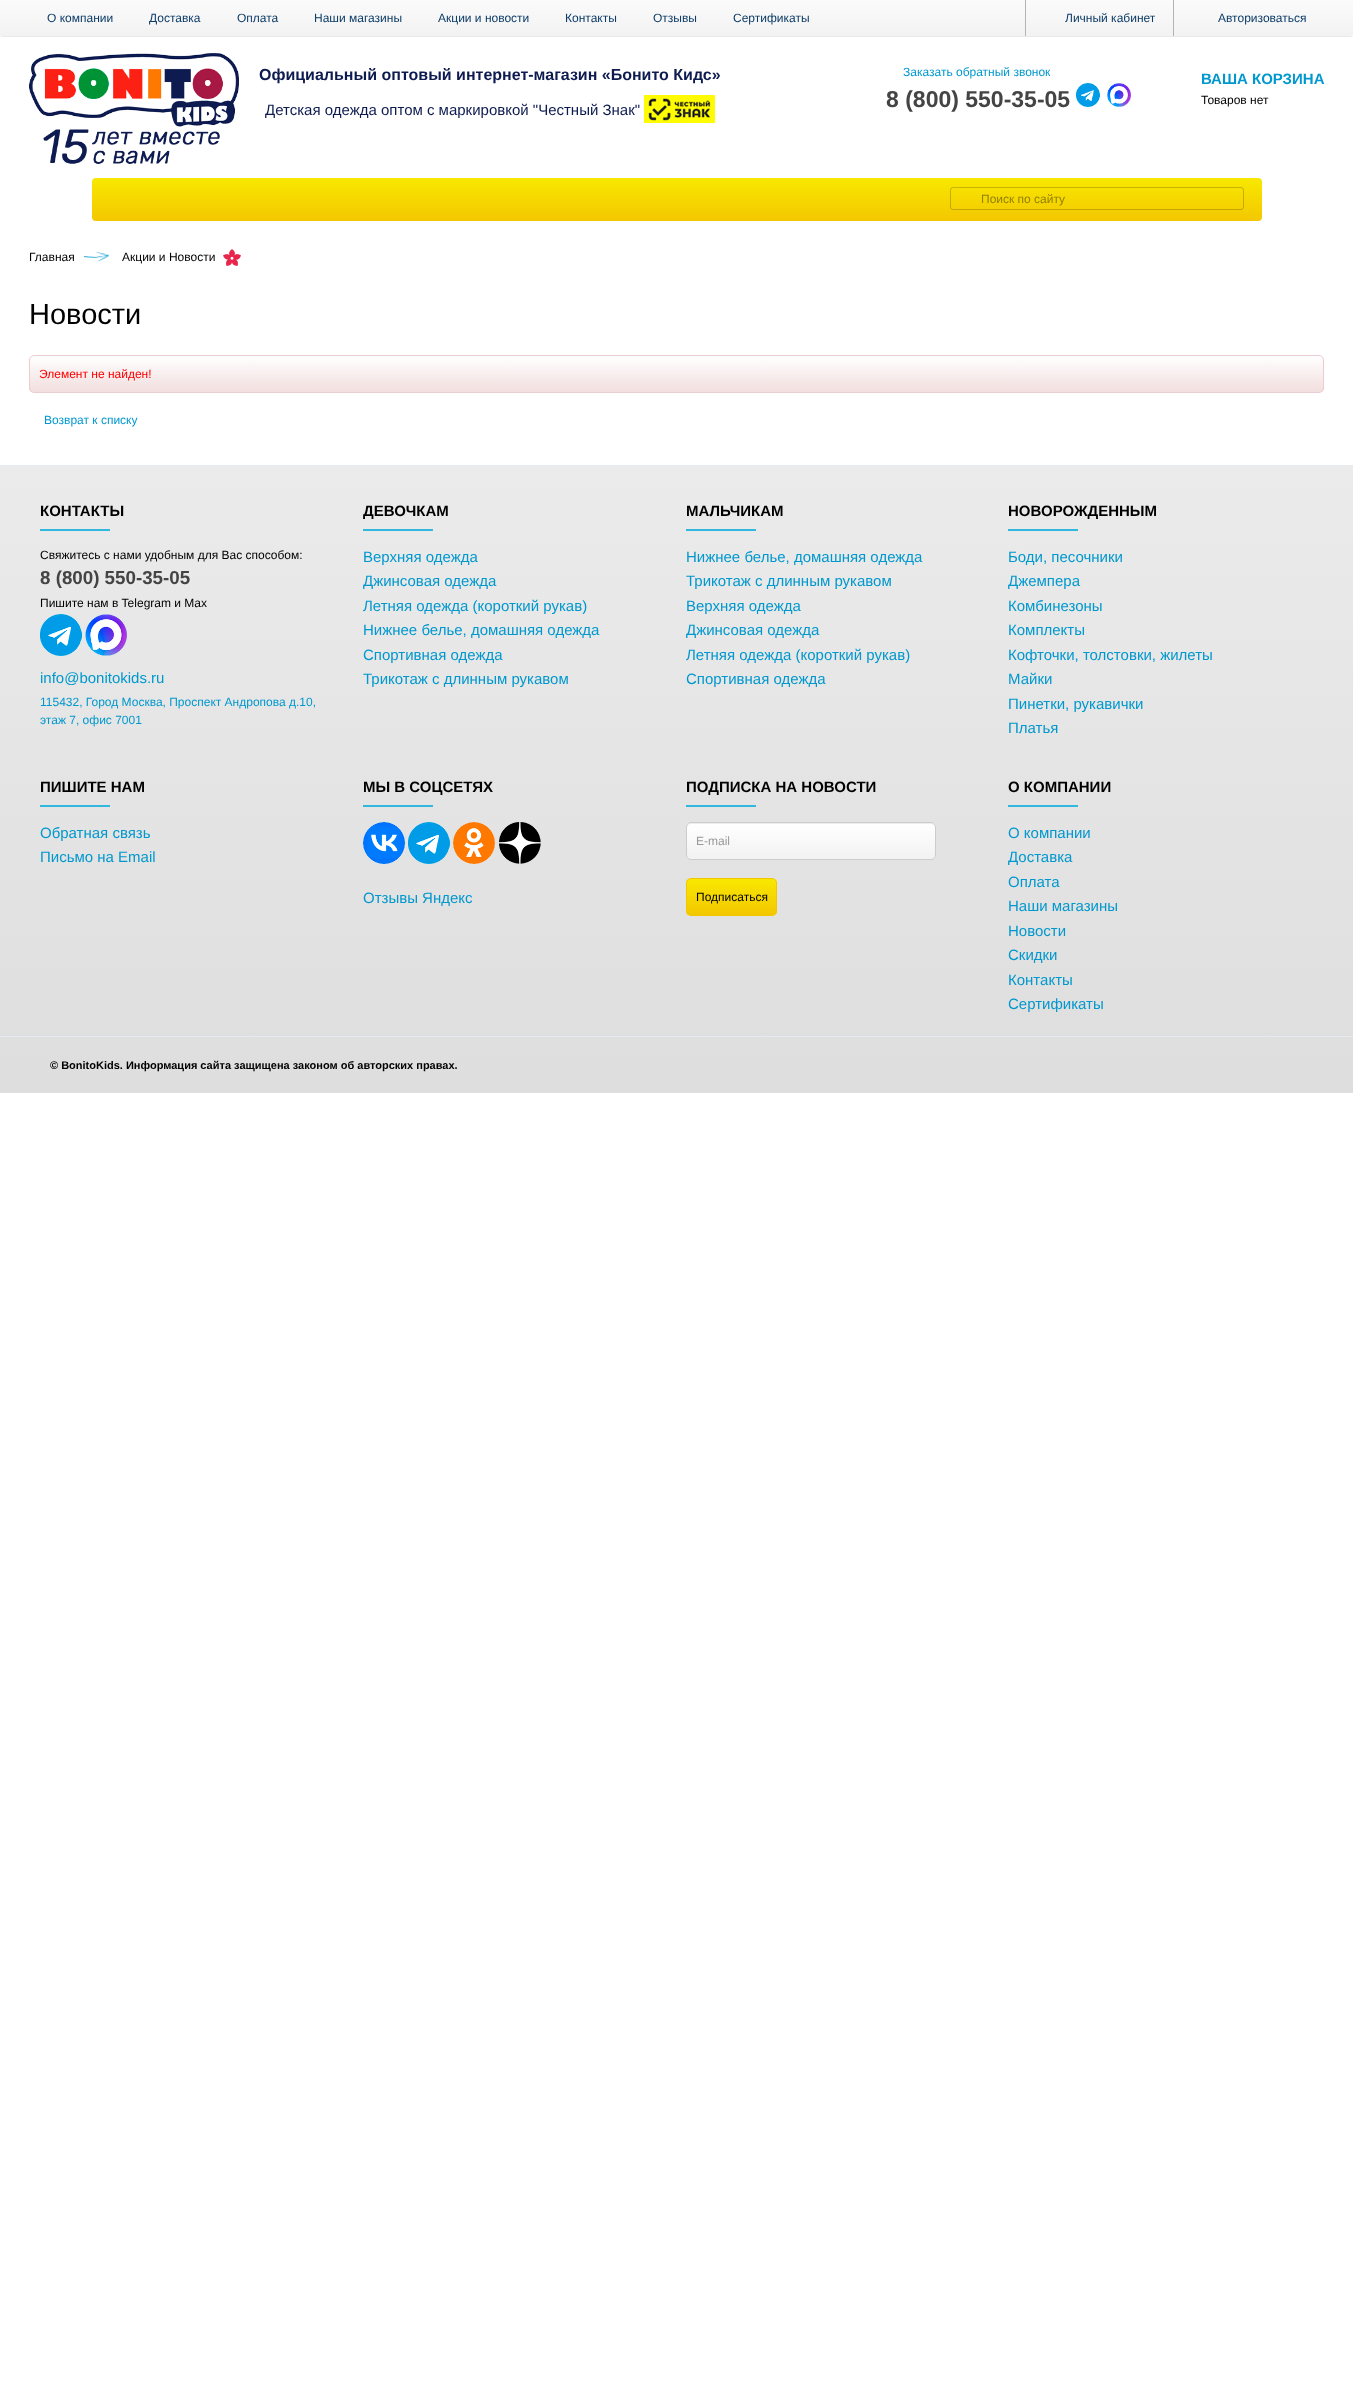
<?xml version="1.0" encoding="UTF-8"?>
<svg xmlns="http://www.w3.org/2000/svg" xmlns:xlink="http://www.w3.org/1999/xlink" width="1353" height="2395">
  <defs>
    <linearGradient id="g1" gradientUnits="userSpaceOnUse" x1="677" y1="0" x2="677" y2="36"><stop offset="0" stop-color="#fbfbfb" /><stop offset="1" stop-color="#f2f2f2" /></linearGradient>
    <linearGradient id="g2" gradientUnits="userSpaceOnUse" x1="677" y1="178" x2="677" y2="221"><stop offset="0" stop-color="#f8e800" /><stop offset="1" stop-color="#f3c700" /></linearGradient>
    <clipPath id="clip1"><rect x="29" y="355" width="1295" height="38" rx="5" /></clipPath>
    <linearGradient id="g3" gradientUnits="userSpaceOnUse" x1="677" y1="356" x2="677" y2="392"><stop offset="0" stop-color="#ffffff" /><stop offset="1" stop-color="#f2dede" /></linearGradient>
    <linearGradient id="g4" gradientUnits="userSpaceOnUse" x1="677" y1="466" x2="677" y2="1093"><stop offset="0" stop-color="#ebebeb" /><stop offset="1" stop-color="#dedede" /></linearGradient>
    <clipPath id="clip2"><rect x="686" y="822" width="250" height="38" rx="5" /></clipPath>
    <linearGradient id="g5" gradientUnits="userSpaceOnUse" x1="811" y1="823" x2="811" y2="859"><stop offset="0" stop-color="#ffffff" /><stop offset="1" stop-color="#f2f2f2" /></linearGradient>
    <clipPath id="clip3"><rect x="686" y="878" width="91" height="38" rx="5" /></clipPath>
    <linearGradient id="g6" gradientUnits="userSpaceOnUse" x1="732" y1="879" x2="732" y2="915"><stop offset="0" stop-color="#f8e800" /><stop offset="1" stop-color="#f3c700" /></linearGradient>
  </defs>
  <rect width="100%" height="100%" fill="#ffffff" />
  <rect x="1" y="1" width="1351" height="34" fill="#000000" filter="blur(1px)" />
  <rect width="1353" height="36" fill="url(#g1)" />
  <rect x="1025" width="1" height="36" fill="#b4b4b4" />
  <rect x="1173" width="1" height="36" fill="#b4b4b4" />
  <image x="29" y="53" width="210" height="111" xlink:href="image1.png" />
  <image x="644" y="95" width="71" height="28" xlink:href="image2.png" />
  <image x="1076" y="83" width="24" height="24" xlink:href="image3.png" />
  <image x="1107" y="83" width="24" height="24" xlink:href="image4.png" />
  <rect x="92" y="178" width="1170" height="43" rx="4" fill="url(#g2)" />
  <rect x="950.5" y="187.5" width="293" height="22" rx="2.5" fill="none" stroke="#000000" stroke-opacity="0.2" />
  <image x="84" y="252" width="25" height="10" xlink:href="image5.png" />
  <image x="223" y="249" width="18" height="17" xlink:href="image6.png" />
  <g clip-path="url(#clip1)">
    <rect x="29" y="356" width="1295" height="36" fill="url(#g3)" />
  </g>
  <rect x="29.5" y="355.5" width="1294" height="37" rx="4.5" fill="none" stroke="#ebccd1" />
  <rect y="466" width="1353" height="627" fill="url(#g4)" />
  <rect y="465" width="1353" height="1" fill="#e5ebf1" />
  <rect x="40" y="529" width="70" height="2" fill="#31b8de" />
  <image x="40" y="614" width="42" height="42" xlink:href="image7.png" />
  <image x="85" y="614" width="42" height="42" xlink:href="image8.png" />
  <rect x="363" y="529" width="70" height="2" fill="#31b8de" />
  <rect x="686" y="529" width="70" height="2" fill="#31b8de" />
  <rect x="1008" y="529" width="70" height="2" fill="#31b8de" />
  <rect x="40" y="805" width="70" height="2" fill="#31b8de" />
  <rect x="363" y="805" width="70" height="2" fill="#31b8de" />
  <image x="363" y="822" width="42" height="42" xlink:href="image9.png" />
  <image x="408" y="822" width="42" height="42" xlink:href="image10.png" />
  <image x="453" y="822" width="42" height="42" xlink:href="image11.png" />
  <image x="499" y="822" width="42" height="42" xlink:href="image12.png" />
  <rect x="686" y="805" width="70" height="2" fill="#31b8de" />
  <g clip-path="url(#clip2)">
    <rect x="686" y="823" width="250" height="36" fill="url(#g5)" />
  </g>
  <path d="M 691 824 h 240 c 2 0 4 2 4 4 v -1 c 0 -2 -2 -4 -4 -4 h -240 c -2 0 -4 2 -4 4 v 1 c 0 -2 2 -4 4 -4 z" fill="#ececec" />
  <rect x="686.5" y="822.5" width="249" height="37" rx="4.5" fill="none" stroke="#cccccc" />
  <g clip-path="url(#clip3)">
    <rect x="686" y="879" width="91" height="36" fill="url(#g6)" />
  </g>
  <rect x="686.5" y="878.5" width="90" height="37" rx="4.5" fill="none" stroke="#f3c700" />
  <rect x="1008" y="805" width="70" height="2" fill="#31b8de" />
  <rect y="1036" width="1353" height="1" fill="#e5ebf1" />
  <text x="47" y="22" style="font-family: Liberation Sans; font-size: 12px; fill: #0d3c68">О компании</text>
  <text x="149" y="22" style="font-family: Liberation Sans; font-size: 12px; fill: #0d3c68">Доставка</text>
  <text x="237" y="22" style="font-family: Liberation Sans; font-size: 12px; fill: #0d3c68">Оплата</text>
  <text x="314" y="22" style="font-family: Liberation Sans; font-size: 12px; fill: #0d3c68">Наши магазины</text>
  <text x="438" y="22" style="font-family: Liberation Sans; font-size: 12px; fill: #0d3c68">Акции и новости</text>
  <text x="565" y="22" style="font-family: Liberation Sans; font-size: 12px; fill: #0d3c68">Контакты</text>
  <text x="653" y="22" style="font-family: Liberation Sans; font-size: 12px; fill: #0d3c68">Отзывы</text>
  <text x="733" y="22" style="font-family: Liberation Sans; font-size: 12px; fill: #0d3c68">Сертификаты</text>
  <text x="1065" y="22" style="font-family: Liberation Sans; font-size: 12px; fill: #0d3c68">Личный кабинет</text>
  <text x="1218" y="22" style="font-family: Liberation Sans; font-size: 12px; fill: #0d3c68">Авторизоваться</text>
  <text x="259" y="80" style="font-family: Liberation Sans; font-size: 16px; font-weight: bold; fill: #0d1b50">Официальный оптовый интернет-магазин «Бонито Кидс»</text>
  <text x="265" y="115" style="font-family: Liberation Sans; font-size: 15px; fill: #0d1b50">Детская одежда оптом с маркировкой "Честный Знак"</text>
  <text x="903" y="76" style="font-family: Liberation Sans; font-size: 12px; fill: #0098ce">Заказать обратный звонок</text>
  <text x="886" y="107" style="font-family: Liberation Sans; font-size: 23px; font-weight: bold; fill: #444444">8 (800) 550-35-05</text>
  <text x="1201" y="84" style="font-family: Liberation Sans; font-size: 15px; font-weight: bold; fill: #0098ce">ВАША КОРЗИНА</text>
  <text x="1201" y="104" style="font-family: Liberation Sans; font-size: 12px; fill: #000000">Товаров нет</text>
  <text x="981" y="203" style="font-family: Liberation Sans; font-size: 12px; fill: #938100">Поиск по сайту</text>
  <text x="29" y="261" style="font-family: Liberation Sans; font-size: 12px; fill: #000000">Главная</text>
  <text x="122" y="261" style="font-family: Liberation Sans; font-size: 12px; fill: #000000">Акции и Новости</text>
  <text x="29" y="324" style="font-family: Liberation Sans; font-size: 29px; fill: #000000">Новости</text>
  <text x="39" y="378" style="font-family: Liberation Sans; font-size: 12px; fill: #ff0000">Элемент не найден!</text>
  <text x="44" y="424" style="font-family: Liberation Sans; font-size: 12px; fill: #0098ce">Возврат к списку</text>
  <text x="40" y="516" style="font-family: Liberation Sans; font-size: 15px; font-weight: bold; fill: #000000">КОНТАКТЫ</text>
  <text x="40" y="559" style="font-family: Liberation Sans; font-size: 12px; fill: #000000">Свяжитесь с нами удобным для Вас способом:</text>
  <text x="40" y="584" style="font-family: Liberation Sans; font-size: 18.75px; font-weight: bold; fill: #444444">8 (800) 550-35-05</text>
  <text x="40" y="607" style="font-family: Liberation Sans; font-size: 12px; fill: #000000">Пишите нам в Telegram и Max</text>
  <text x="40" y="683" style="font-family: Liberation Sans; font-size: 15px; fill: #0098ce">info@bonitokids.ru</text>
  <text x="40" y="706" style="font-family: Liberation Sans; font-size: 12px; fill: #0098ce">115432, Город Москва, Проспект Андропова д.10,</text>
  <text x="40" y="724" style="font-family: Liberation Sans; font-size: 12px; fill: #0098ce">этаж 7, офис 7001</text>
  <text x="363" y="516" style="font-family: Liberation Sans; font-size: 15px; font-weight: bold; fill: #000000">ДЕВОЧКАМ</text>
  <text x="363" y="562" style="font-family: Liberation Sans; font-size: 15px; fill: #0098ce">Верхняя одежда</text>
  <text x="363" y="586" style="font-family: Liberation Sans; font-size: 15px; fill: #0098ce">Джинсовая одежда</text>
  <text x="363" y="611" style="font-family: Liberation Sans; font-size: 15px; fill: #0098ce">Летняя одежда (короткий рукав)</text>
  <text x="363" y="635" style="font-family: Liberation Sans; font-size: 15px; fill: #0098ce">Нижнее белье, домашняя одежда</text>
  <text x="363" y="660" style="font-family: Liberation Sans; font-size: 15px; fill: #0098ce">Спортивная одежда</text>
  <text x="363" y="684" style="font-family: Liberation Sans; font-size: 15px; fill: #0098ce">Трикотаж с длинным рукавом</text>
  <text x="686" y="516" style="font-family: Liberation Sans; font-size: 15px; font-weight: bold; fill: #000000">МАЛЬЧИКАМ</text>
  <text x="686" y="562" style="font-family: Liberation Sans; font-size: 15px; fill: #0098ce">Нижнее белье, домашняя одежда</text>
  <text x="686" y="586" style="font-family: Liberation Sans; font-size: 15px; fill: #0098ce">Трикотаж с длинным рукавом</text>
  <text x="686" y="611" style="font-family: Liberation Sans; font-size: 15px; fill: #0098ce">Верхняя одежда</text>
  <text x="686" y="635" style="font-family: Liberation Sans; font-size: 15px; fill: #0098ce">Джинсовая одежда</text>
  <text x="686" y="660" style="font-family: Liberation Sans; font-size: 15px; fill: #0098ce">Летняя одежда (короткий рукав)</text>
  <text x="686" y="684" style="font-family: Liberation Sans; font-size: 15px; fill: #0098ce">Спортивная одежда</text>
  <text x="1008" y="516" style="font-family: Liberation Sans; font-size: 15px; font-weight: bold; fill: #000000">НОВОРОЖДЕННЫМ</text>
  <text x="1008" y="562" style="font-family: Liberation Sans; font-size: 15px; fill: #0098ce">Боди, песочники</text>
  <text x="1008" y="586" style="font-family: Liberation Sans; font-size: 15px; fill: #0098ce">Джемпера</text>
  <text x="1008" y="611" style="font-family: Liberation Sans; font-size: 15px; fill: #0098ce">Комбинезоны</text>
  <text x="1008" y="635" style="font-family: Liberation Sans; font-size: 15px; fill: #0098ce">Комплекты</text>
  <text x="1008" y="660" style="font-family: Liberation Sans; font-size: 15px; fill: #0098ce">Кофточки, толстовки, жилеты</text>
  <text x="1008" y="684" style="font-family: Liberation Sans; font-size: 15px; fill: #0098ce">Майки</text>
  <text x="1008" y="709" style="font-family: Liberation Sans; font-size: 15px; fill: #0098ce">Пинетки, рукавички</text>
  <text x="1008" y="733" style="font-family: Liberation Sans; font-size: 15px; fill: #0098ce">Платья</text>
  <text x="40" y="792" style="font-family: Liberation Sans; font-size: 15px; font-weight: bold; fill: #000000">ПИШИТЕ НАМ</text>
  <text x="40" y="838" style="font-family: Liberation Sans; font-size: 15px; fill: #0098ce">Обратная связь</text>
  <text x="40" y="862" style="font-family: Liberation Sans; font-size: 15px; fill: #0098ce">Письмо на Email</text>
  <text x="363" y="792" style="font-family: Liberation Sans; font-size: 15px; font-weight: bold; fill: #000000">МЫ В СОЦСЕТЯХ</text>
  <text x="363" y="903" style="font-family: Liberation Sans; font-size: 15px; fill: #0098ce">Отзывы Яндекс</text>
  <text x="686" y="792" style="font-family: Liberation Sans; font-size: 15px; font-weight: bold; fill: #000000">ПОДПИСКА НА НОВОСТИ</text>
  <text x="696" y="845" style="font-family: Liberation Sans; font-size: 12px; fill: #999999">E-mail</text>
  <text x="696" y="901" style="font-family: Liberation Sans; font-size: 12px; fill: #000000">Подписаться</text>
  <text x="1008" y="792" style="font-family: Liberation Sans; font-size: 15px; font-weight: bold; fill: #000000">О КОМПАНИИ</text>
  <text x="1008" y="838" style="font-family: Liberation Sans; font-size: 15px; fill: #0098ce">О компании</text>
  <text x="1008" y="862" style="font-family: Liberation Sans; font-size: 15px; fill: #0098ce">Доставка</text>
  <text x="1008" y="887" style="font-family: Liberation Sans; font-size: 15px; fill: #0098ce">Оплата</text>
  <text x="1008" y="911" style="font-family: Liberation Sans; font-size: 15px; fill: #0098ce">Наши магазины</text>
  <text x="1008" y="936" style="font-family: Liberation Sans; font-size: 15px; fill: #0098ce">Новости</text>
  <text x="1008" y="960" style="font-family: Liberation Sans; font-size: 15px; fill: #0098ce">Скидки</text>
  <text x="1008" y="985" style="font-family: Liberation Sans; font-size: 15px; fill: #0098ce">Контакты</text>
  <text x="1008" y="1009" style="font-family: Liberation Sans; font-size: 15px; fill: #0098ce">Сертификаты</text>
  <text x="50" y="1069" style="font-family: Liberation Sans; font-size: 11px; font-weight: bold; fill: #000000">© BonitoKids. Информация сайта защищена законом об авторских правах.</text>
</svg>
